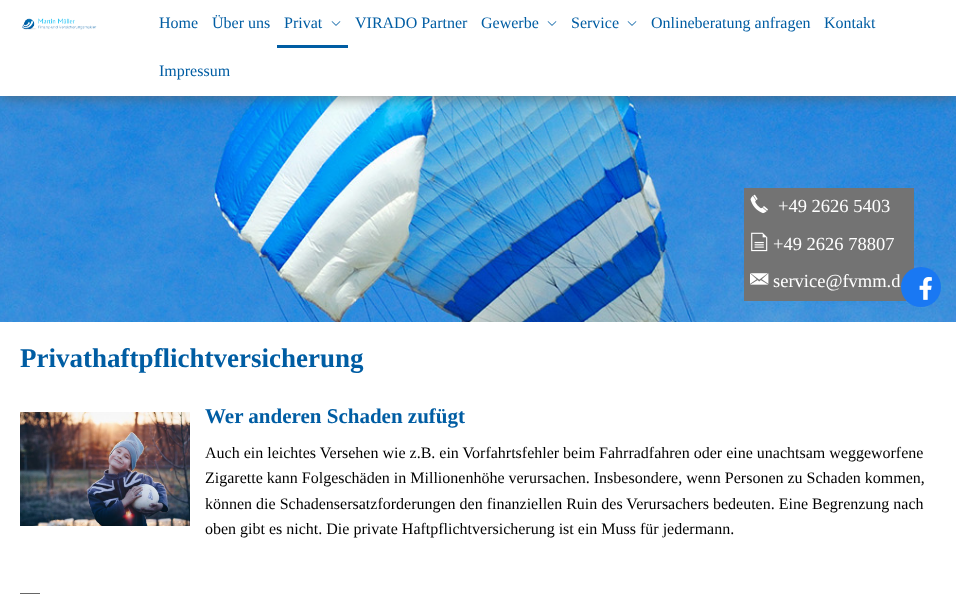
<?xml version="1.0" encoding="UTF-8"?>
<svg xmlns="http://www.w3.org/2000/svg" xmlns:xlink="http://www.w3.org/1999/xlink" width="956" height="594">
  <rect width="100%" height="100%" fill="#ffffff" />
  <image x="0" y="96" width="956" height="226" xlink:href="image2.png" />
  <rect width="956" height="96" fill="#595a59" fill-opacity="0.8" filter="blur(8px)" />
  <rect width="956" height="96" fill="#ffffff" />
  <rect x="277" y="45" width="71" height="3" fill="#005da3" />
  <image x="331" y="21" width="10" height="5" xlink:href="image1.png" />
  <image x="547" y="21" width="10" height="5" xlink:href="image1.png" />
  <image x="627" y="21" width="10" height="5" xlink:href="image1.png" />
  <image x="22" y="18" width="75" height="12" xlink:href="image3.png" />
  <rect x="744" y="188" width="170" height="113" fill="#737373" />
  <image x="750" y="194" width="18" height="20" xlink:href="image4.png" />
  <image x="751" y="232" width="17" height="20" xlink:href="image5.png" />
  <image x="750" y="273" width="19" height="12" xlink:href="image6.png" />
  <circle cx="921" cy="287" r="20" fill="#1978f3" />
  <image x="919" y="277" width="13" height="23" xlink:href="image7.png" />
  <image x="20" y="412" width="170" height="114" xlink:href="image8.png" />
  <rect x="20" y="593" width="20" height="1" fill="#666666" />
  <text x="159" y="28" style="font-family: Liberation Serif; font-size: 16px; fill: #005da3">Home</text>
  <text x="212" y="28" style="font-family: Liberation Serif; font-size: 16px; fill: #005da3">Über uns</text>
  <text x="284" y="28" style="font-family: Liberation Serif; font-size: 16px; fill: #005da3">Privat</text>
  <text x="355" y="28" style="font-family: Liberation Serif; font-size: 16px; fill: #005da3">VIRADO Partner</text>
  <text x="481" y="28" style="font-family: Liberation Serif; font-size: 16px; fill: #005da3">Gewerbe</text>
  <text x="571" y="28" style="font-family: Liberation Serif; font-size: 16px; fill: #005da3">Service</text>
  <text x="651" y="28" style="font-family: Liberation Serif; font-size: 16px; fill: #005da3">Onlineberatung anfragen</text>
  <text x="824" y="28" style="font-family: Liberation Serif; font-size: 16px; fill: #005da3">Kontakt</text>
  <text x="159" y="76" style="font-family: Liberation Serif; font-size: 16px; fill: #005da3">Impressum</text>
  <text x="778" y="212" style="font-family: Liberation Serif; font-size: 18.5px; fill: #ffffff">+49 2626 5403</text>
  <text x="773" y="250" style="font-family: Liberation Serif; font-size: 18.5px; fill: #ffffff">+49 2626 78807</text>
  <text x="773" y="287" style="font-family: Liberation Serif; font-size: 18.5px; fill: #ffffff">service@fvmm.d</text>
  <text x="20" y="367" style="font-family: Liberation Serif; font-size: 27px; font-weight: bold; fill: #005da3">Privathaftpflichtversicherung</text>
  <text x="205" y="423" style="font-family: Liberation Serif; font-size: 21px; font-weight: bold; fill: #005da3">Wer anderen Schaden zufügt</text>
  <text x="205" y="458" style="font-family: Liberation Serif; font-size: 16px; fill: #000000">Auch ein leichtes Versehen wie z.B. ein Vorfahrtsfehler beim Fahrradfahren oder eine unachtsam weggeworfene</text>
  <text x="205" y="483" style="font-family: Liberation Serif; font-size: 16px; fill: #000000">Zigarette kann Folgeschäden in Millionenhöhe verursachen. Insbesondere, wenn Personen zu Schaden kommen,</text>
  <text x="205" y="509" style="font-family: Liberation Serif; font-size: 16px; fill: #000000">können die Schadensersatzforderungen den finanziellen Ruin des Verursachers bedeuten. Eine Begrenzung nach</text>
  <text x="205" y="534" style="font-family: Liberation Serif; font-size: 16px; fill: #000000">oben gibt es nicht. Die private Haftpflichtversicherung ist ein Muss für jedermann.</text>
</svg>
